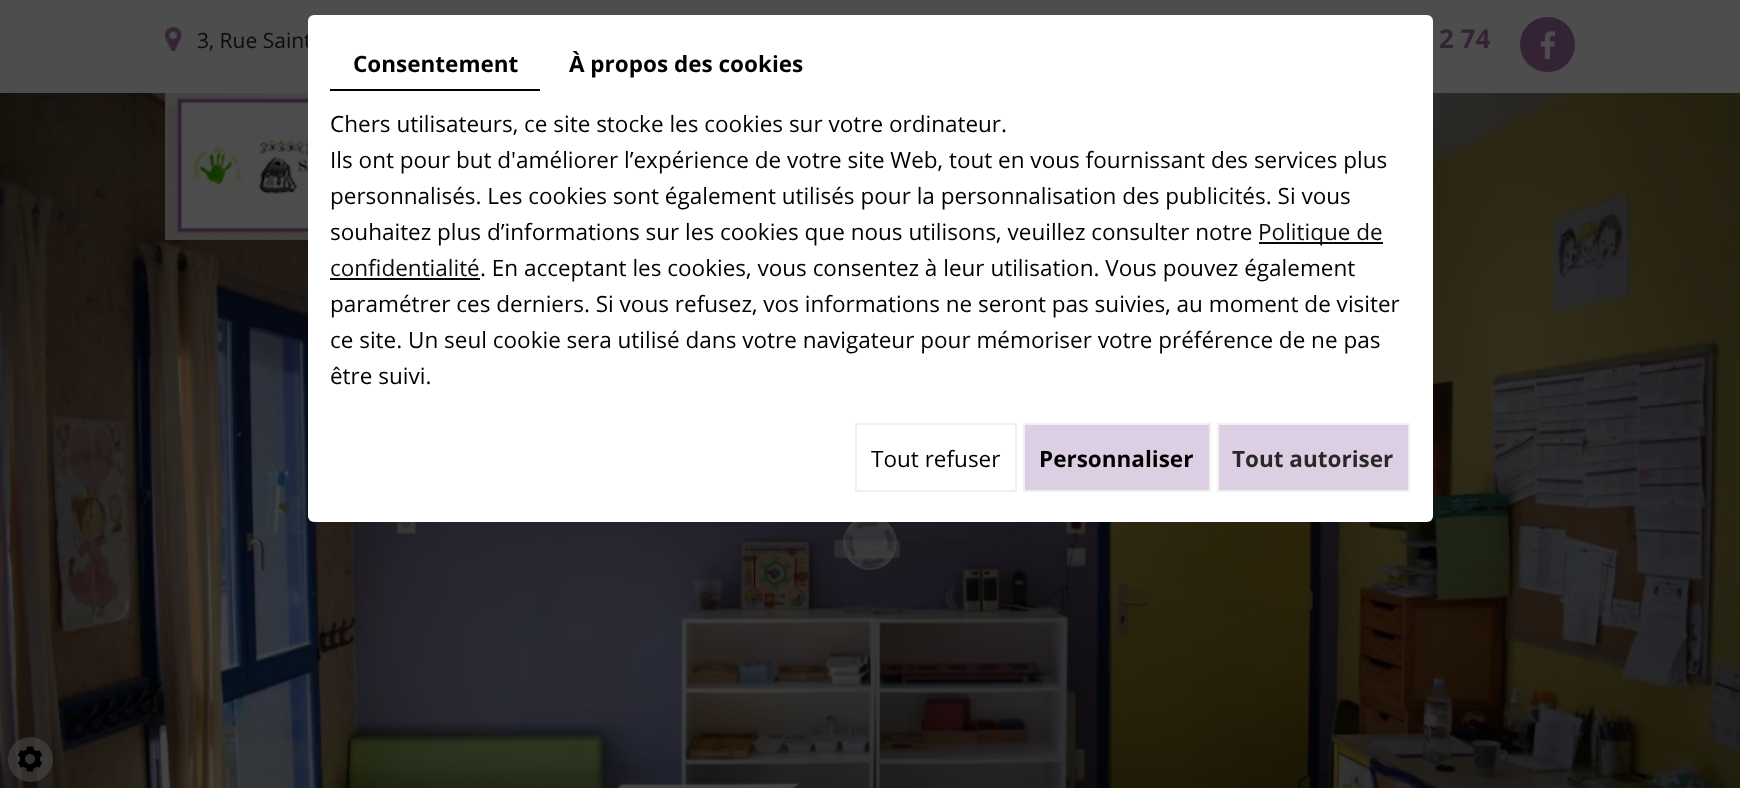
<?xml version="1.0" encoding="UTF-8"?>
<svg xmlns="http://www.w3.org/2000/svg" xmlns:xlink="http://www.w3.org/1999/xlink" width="1740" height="788">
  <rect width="100%" height="100%" fill="#4d4d4d" />
  <image x="165" y="27" width="17" height="24" xlink:href="image1.png" />
  <circle cx="1547.5" cy="44.5" r="27.5" fill="#342334" />
  <image x="1540" y="31" width="16" height="29" xlink:href="image2.png" />
  <image x="0" y="93" width="1740" height="695" xlink:href="image3.png" />
  <circle cx="870" cy="543" r="27" fill="#4d4d4d" fill-opacity="0.27" />
  <image x="847" y="522" width="46" height="44" xlink:href="image4.png" />
  <circle cx="870" cy="543" r="26" fill="none" stroke="#4d4d4d" stroke-opacity="0.3" stroke-width="2" />
  <image x="165" y="93" width="143" height="147" xlink:href="image5.png" />
  <circle cx="30.5" cy="759.5" r="22.5" fill="#4d4d4d" fill-opacity="0.54" />
  <image x="17" y="746" width="26" height="26" xlink:href="image6.png" />
  <text x="197" y="48" style="font-family: Open Sans; font-size: 21px; fill: #0c0c0c">3, Rue Saint</text>
  <text x="1439" y="48" style="font-family: Open Sans; font-size: 26px; font-weight: bold; fill: #342334">2 74</text>
  <rect x="308" y="15" width="1125" height="507" rx="6" fill="#ffffff" />
  <rect x="330" y="89" width="210" height="2" fill="#000000" />
  <text x="353" y="72" style="font-family: Open Sans; font-size: 22.5px; font-weight: bold; fill: #000000">Consentement</text>
  <text x="569" y="72" style="font-family: Open Sans; font-size: 22.5px; font-weight: bold; fill: #000000">À propos des cookies</text>
  <text x="330" y="132" style="font-family: Open Sans; font-size: 22.5px; fill: #000000">Chers utilisateurs, ce site stocke les cookies sur votre ordinateur.</text>
  <text x="330" y="168" style="font-family: Open Sans; font-size: 22.5px; fill: #000000">Ils ont pour but d'améliorer l’expérience de votre site Web, tout en vous fournissant des services plus</text>
  <text x="330" y="204" style="font-family: Open Sans; font-size: 22.5px; fill: #000000">personnalisés. Les cookies sont également utilisés pour la personnalisation des publicités. Si vous</text>
  <text x="330" y="240" style="font-family: Open Sans; font-size: 22.5px; fill: #000000">souhaitez plus d’informations sur les cookies que nous utilisons, veuillez consulter notre</text>
  <rect x="1259" y="242" width="124" height="2" fill="#080808" />
  <text x="1258" y="240" style="font-family: Open Sans; font-size: 22.5px; fill: #0c0c0c">Politique de</text>
  <text x="330" y="276" style="font-family: Open Sans; font-size: 22.5px; fill: #0c0c0c">confidentialité</text>
  <rect x="330" y="278" width="150" height="2" fill="#080808" />
  <text x="480" y="276" style="font-family: Open Sans; font-size: 22.5px; fill: #000000">. En acceptant les cookies, vous consentez à leur utilisation. Vous pouvez également</text>
  <text x="330" y="312" style="font-family: Open Sans; font-size: 22.5px; fill: #000000">paramétrer ces derniers. Si vous refusez, vos informations ne seront pas suivies, au moment de visiter</text>
  <text x="330" y="348" style="font-family: Open Sans; font-size: 22.5px; fill: #000000">ce site. Un seul cookie sera utilisé dans votre navigateur pour mémoriser votre préférence de ne pas</text>
  <text x="330" y="384" style="font-family: Open Sans; font-size: 22.5px; fill: #000000">être suivi.</text>
  <rect x="856" y="424" width="160" height="67" fill="none" stroke="#f0f0f0" stroke-width="2" />
  <text x="871" y="467" style="font-family: Open Sans; font-size: 22.5px; fill: #000000">Tout refuser</text>
  <rect x="1024" y="424" width="186" height="67" fill="#ddcfe3" stroke="#f0f0f0" stroke-width="2" />
  <text x="1039" y="467" style="font-family: Open Sans; font-size: 22.5px; font-weight: bold; fill: #000000">Personnaliser</text>
  <rect x="1218" y="424" width="191" height="67" fill="#ddcfe3" stroke="#f0f0f0" stroke-width="2" />
  <text x="1232" y="467" style="font-family: Open Sans; font-size: 22.5px; font-weight: bold; fill: #282828">Tout autoriser</text>
</svg>
